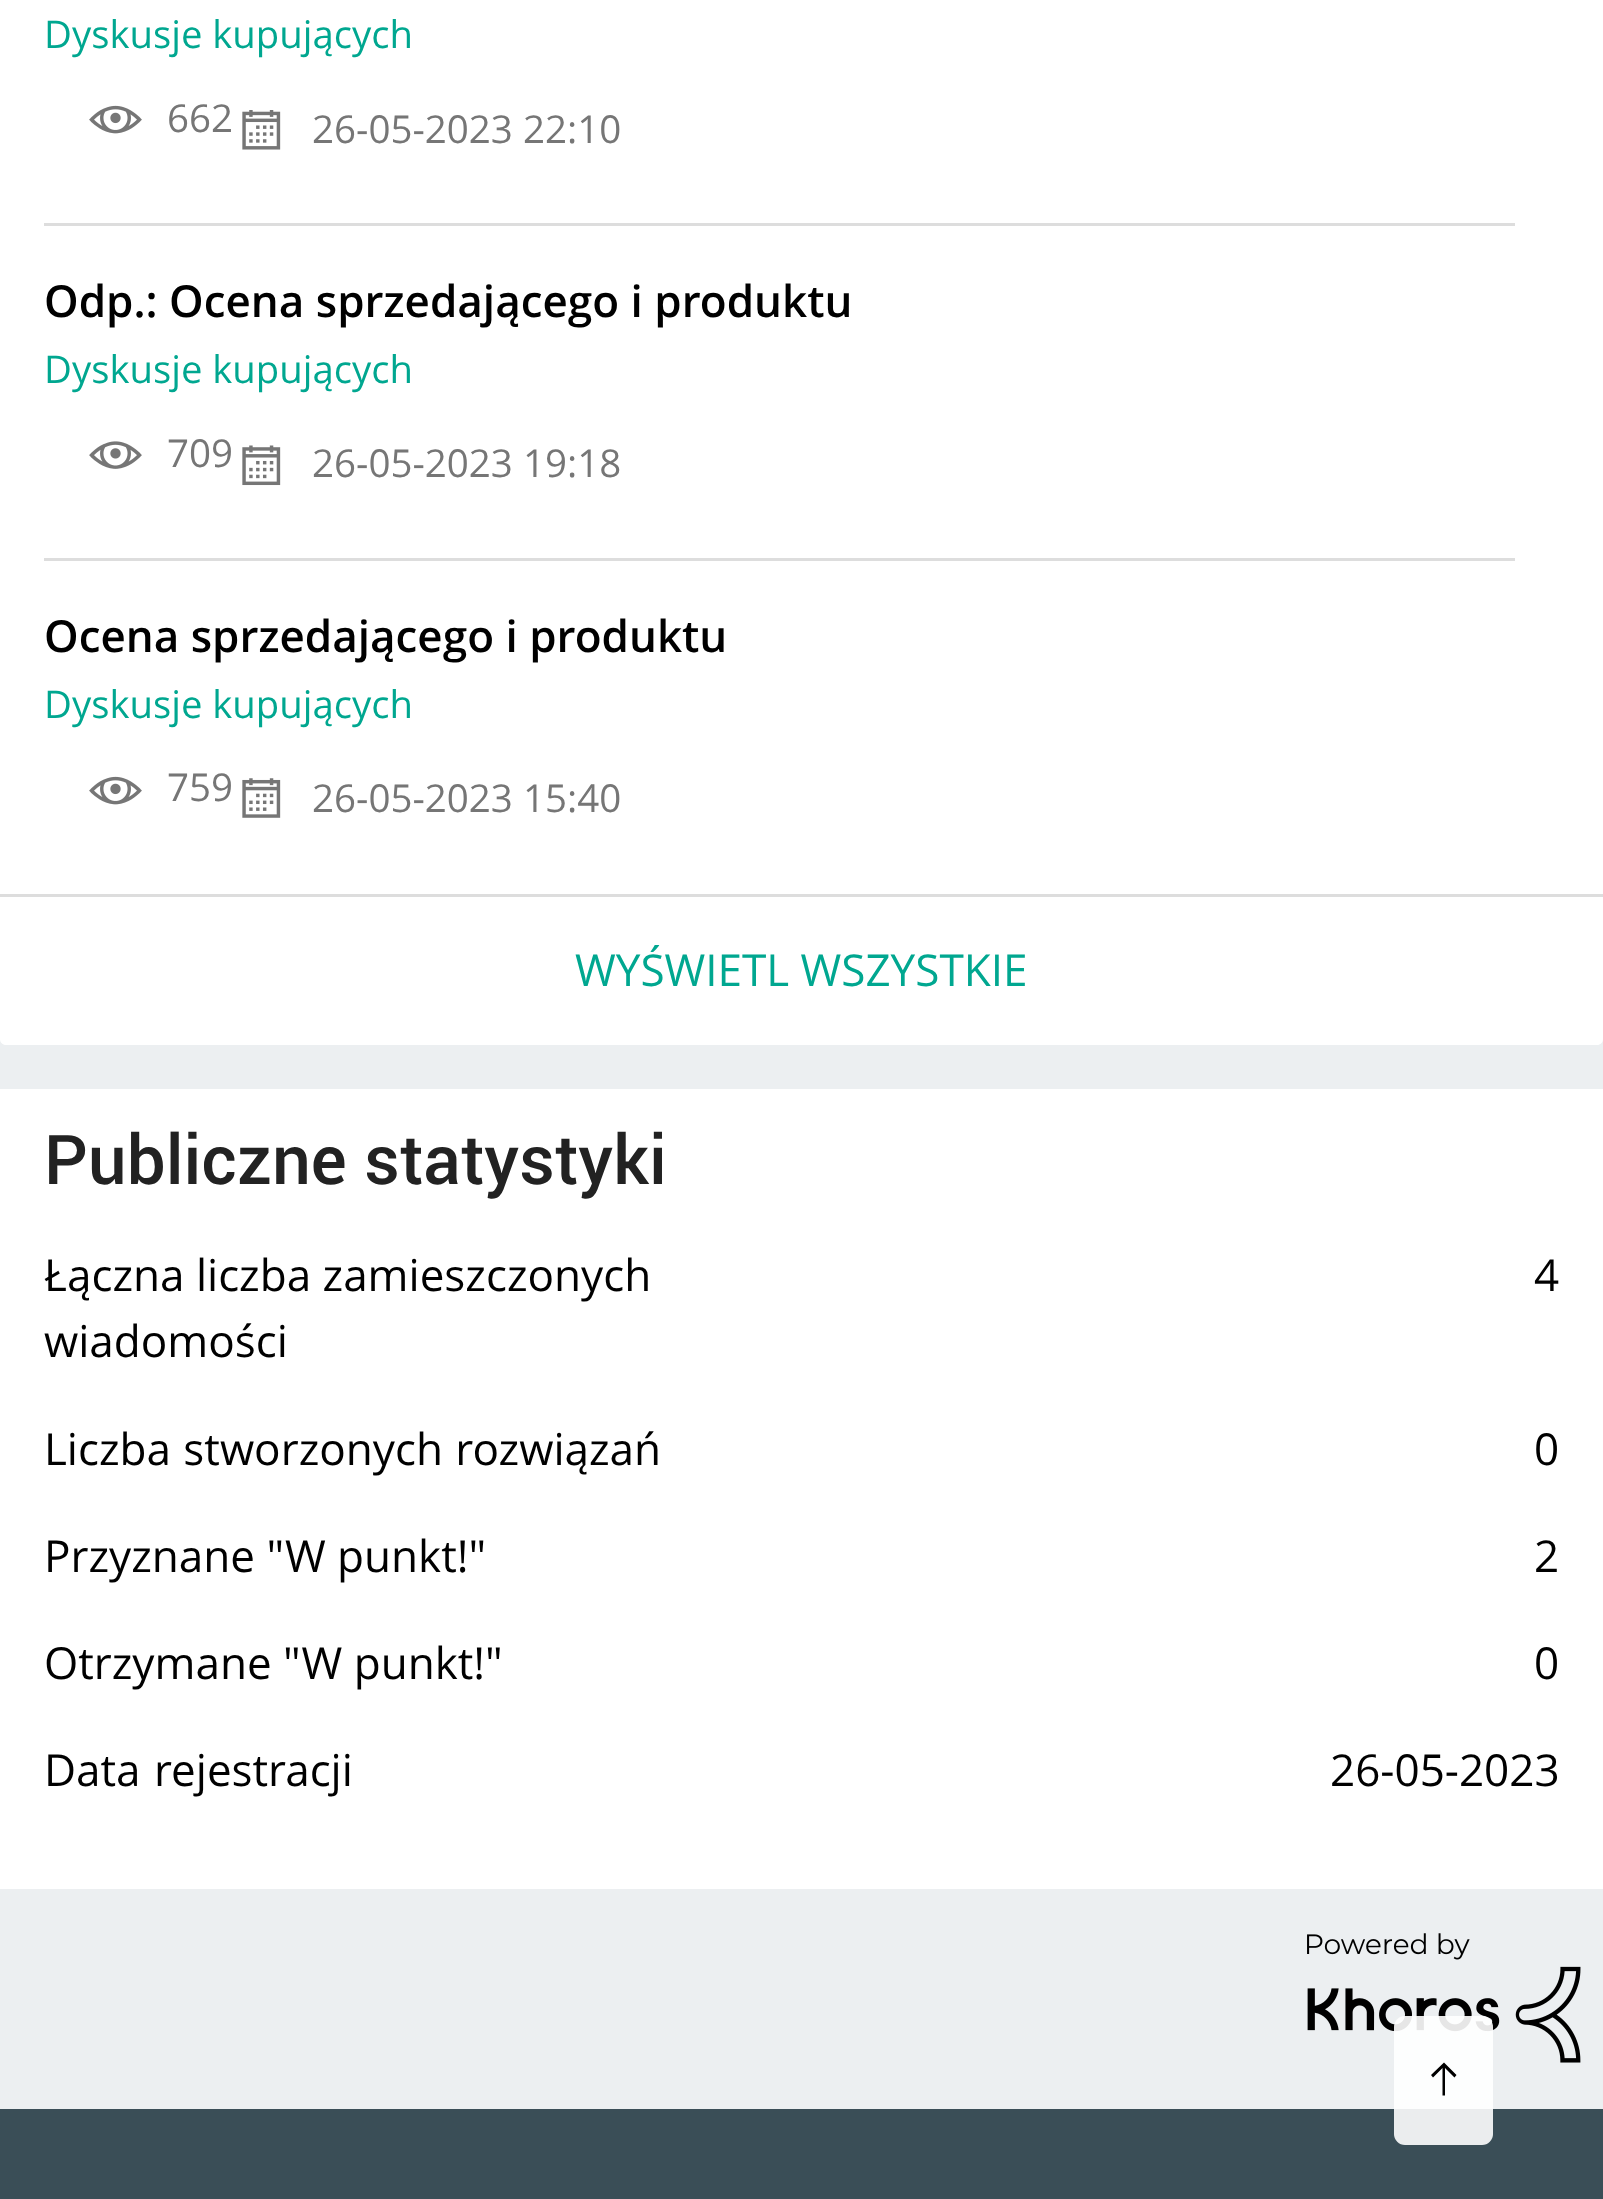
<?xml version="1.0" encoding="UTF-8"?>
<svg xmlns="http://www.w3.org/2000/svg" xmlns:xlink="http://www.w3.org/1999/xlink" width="1603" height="2199">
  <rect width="100%" height="100%" fill="#eceff1" />
  <rect width="1603" height="894" fill="#ffffff" />
  <rect x="44" y="223" width="1471" height="3" fill="#dddddd" />
  <image x="89" y="105" width="53" height="29" xlink:href="image1.png" />
  <image x="242" y="110" width="39" height="40" xlink:href="image2.png" />
  <rect x="44" y="558" width="1471" height="3" fill="#dddddd" />
  <image x="89" y="441" width="53" height="28" xlink:href="image3.png" />
  <image x="242" y="445" width="39" height="41" xlink:href="image4.png" />
  <image x="89" y="776" width="53" height="29" xlink:href="image1.png" />
  <image x="242" y="778" width="39" height="40" xlink:href="image5.png" />
  <path d="M 0 894 h 1603 v 145 c 0 3.5 -2.5 6 -6 6 h -1591 c -3.5 0 -6 -2.5 -6 -6 z" fill="#ffffff" />
  <rect y="894" width="1603" height="3" fill="#dddddd" />
  <rect y="1089" width="1603" height="800" fill="#ffffff" />
  <image x="1307" y="1933" width="274" height="130" xlink:href="image6.png" />
  <rect y="2109" width="1603" height="90" fill="#3a4e57" />
  <rect x="1394" y="2016" width="99" height="129" rx="11" fill="#ffffff" fill-opacity="0.9" />
  <path d="M 1444 2062.5 l 12.5 12.5 l -2 2.5 l -9.5 -9.5 v 27.5 h -2.5 v -27.5 l -9.5 9.5 l -2 -2.5 z" fill="#000000" />
  <text x="44" y="48" style="font-family: Open Sans; font-size: 38.25px; fill: #00a790">Dyskusje kupujących</text>
  <text x="167" y="132" style="font-family: Open Sans; font-size: 38.5px; fill: #767676">662</text>
  <text x="312" y="143" style="font-family: Open Sans; font-size: 38.5px; fill: #767676">26-05-2023 22:10</text>
  <text x="44" y="317" style="font-family: Open Sans; font-size: 44px; font-weight: 600; fill: #000000">Odp.: Ocena sprzedającego i produktu</text>
  <text x="44" y="383" style="font-family: Open Sans; font-size: 38.25px; fill: #00a790">Dyskusje kupujących</text>
  <text x="167" y="467" style="font-family: Open Sans; font-size: 38.5px; fill: #767676">709</text>
  <text x="312" y="477" style="font-family: Open Sans; font-size: 38.5px; fill: #767676">26-05-2023 19:18</text>
  <text x="44" y="652" style="font-family: Open Sans; font-size: 44px; font-weight: 600; fill: #000000">Ocena sprzedającego i produktu</text>
  <text x="44" y="718" style="font-family: Open Sans; font-size: 38.25px; fill: #00a790">Dyskusje kupujących</text>
  <text x="167" y="801" style="font-family: Open Sans; font-size: 38.5px; fill: #767676">759</text>
  <text x="312" y="812" style="font-family: Open Sans; font-size: 38.5px; fill: #767676">26-05-2023 15:40</text>
  <text x="575" y="986" style="font-family: Open Sans; font-size: 44px; fill: #00a790">WYŚWIETL WSZYSTKIE</text>
  <text x="44" y="1184" style="font-family: Roboto; font-size: 68.75px; font-weight: 500; fill: #222222">Publiczne statystyki</text>
  <text x="44" y="1291" style="font-family: Open Sans; font-size: 44px; fill: #000000">Łączna liczba zamieszczonych</text>
  <text x="44" y="1357" style="font-family: Open Sans; font-size: 44px; fill: #000000">wiadomości</text>
  <text x="1534" y="1291" style="font-family: Open Sans; font-size: 44px; fill: #000000">4</text>
  <text x="44" y="1465" word-spacing="1" style="font-family: Open Sans; font-size: 44px; fill: #000000">Liczba stworzonych rozwiązań</text>
  <text x="1534" y="1465" style="font-family: Open Sans; font-size: 44px; fill: #000000">0</text>
  <text x="44" y="1572" style="font-family: Open Sans; font-size: 44px; fill: #000000">Przyznane "W punkt!"</text>
  <text x="1534" y="1572" style="font-family: Open Sans; font-size: 44px; fill: #000000">2</text>
  <text x="44" y="1679" style="font-family: Open Sans; font-size: 44px; fill: #000000">Otrzymane "W punkt!"</text>
  <text x="1534" y="1679" style="font-family: Open Sans; font-size: 44px; fill: #000000">0</text>
  <text x="44" y="1786" word-spacing="2" style="font-family: Open Sans; font-size: 44px; fill: #000000">Data rejestracji</text>
  <text x="1330" y="1786" style="font-family: Open Sans; font-size: 44px; fill: #000000">26-05-2023</text>
</svg>
